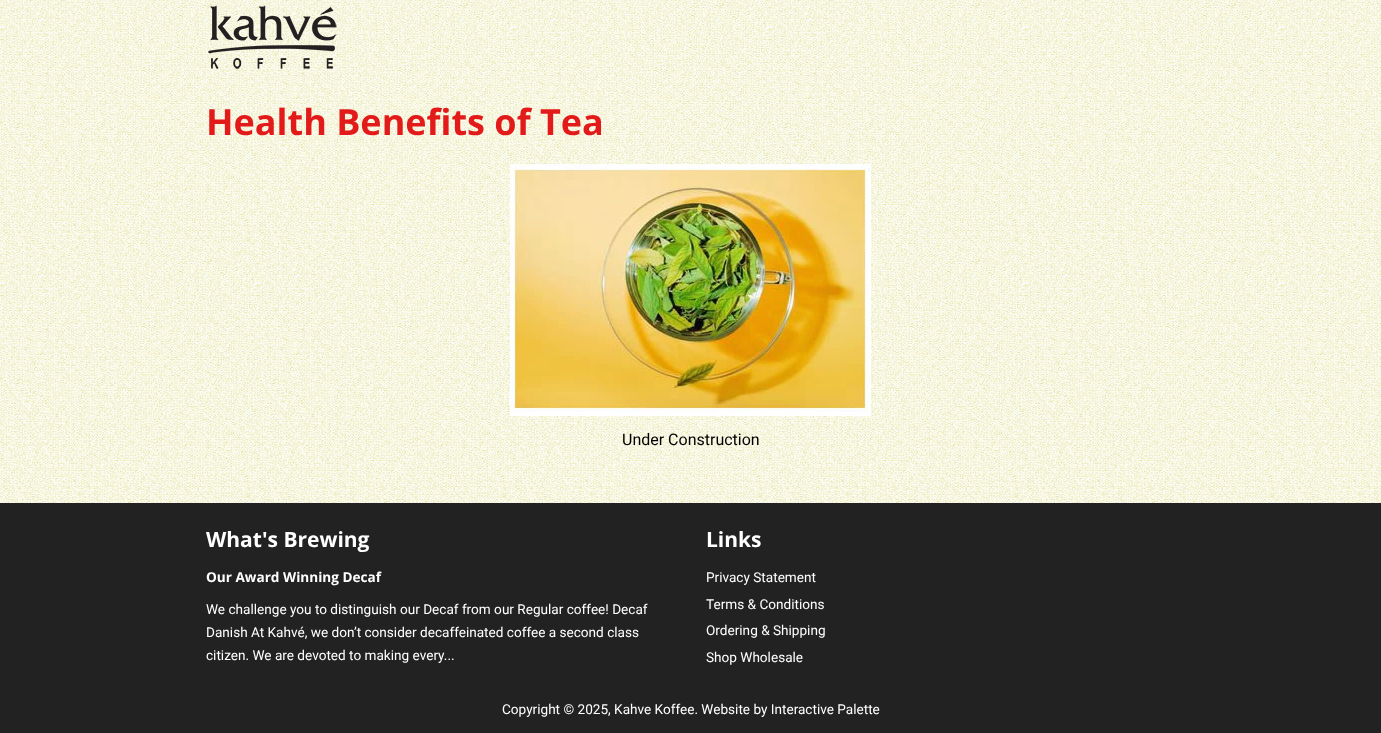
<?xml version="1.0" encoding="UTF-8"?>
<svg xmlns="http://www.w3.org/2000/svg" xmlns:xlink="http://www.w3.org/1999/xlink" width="1381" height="733">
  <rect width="100%" height="100%" fill="#ffffff" />
  <image x="0" y="0" width="1381" height="503" xlink:href="image1.png" />
  <image x="208" y="5" width="129" height="64" xlink:href="image2.png" />
  <image x="510" y="164" width="361" height="252" xlink:href="image3.png" />
  <rect y="503" width="1381" height="230" fill="#222222" />
  <text x="206" y="135" style="font-family: Open Sans; font-size: 36px; font-weight: bold; fill: #e31a1a">Health Benefits of Tea</text>
  <text x="622" y="445" style="font-family: Roboto; font-size: 16px; fill: #000000">Under Construction</text>
  <text x="206" y="547" style="font-family: Open Sans; font-size: 21px; font-weight: bold; fill: #ffffff">What's Brewing</text>
  <text x="206" y="582" style="font-family: Open Sans; font-size: 13.6px; font-weight: bold; fill: #ffffff">Our Award Winning Decaf</text>
  <text x="206" y="614" style="font-family: Roboto; font-size: 13.6px; fill: #ffffff">We challenge you to distinguish our Decaf from our Regular coffee! Decaf</text>
  <text x="206" y="637" style="font-family: Roboto; font-size: 13.6px; fill: #ffffff">Danish At Kahvé, we don’t consider decaffeinated coffee a second class</text>
  <text x="206" y="660" style="font-family: Roboto; font-size: 13.6px; fill: #ffffff">citizen. We are devoted to making every...</text>
  <text x="706" y="547" style="font-family: Open Sans; font-size: 21px; font-weight: bold; fill: #ffffff">Links</text>
  <text x="706" y="582" style="font-family: Roboto; font-size: 13.6px; fill: #ffffff">Privacy Statement</text>
  <text x="706" y="609" style="font-family: Roboto; font-size: 13.6px; fill: #ffffff">Terms &amp; Conditions</text>
  <text x="706" y="635" style="font-family: Roboto; font-size: 13.6px; fill: #ffffff">Ordering &amp; Shipping</text>
  <text x="706" y="662" style="font-family: Roboto; font-size: 13.6px; fill: #ffffff">Shop Wholesale</text>
  <text x="502" y="714" style="font-family: Roboto; font-size: 13.6px; fill: #ffffff">Copyright © 2025, Kahve Koffee. Website by Interactive Palette</text>
</svg>
